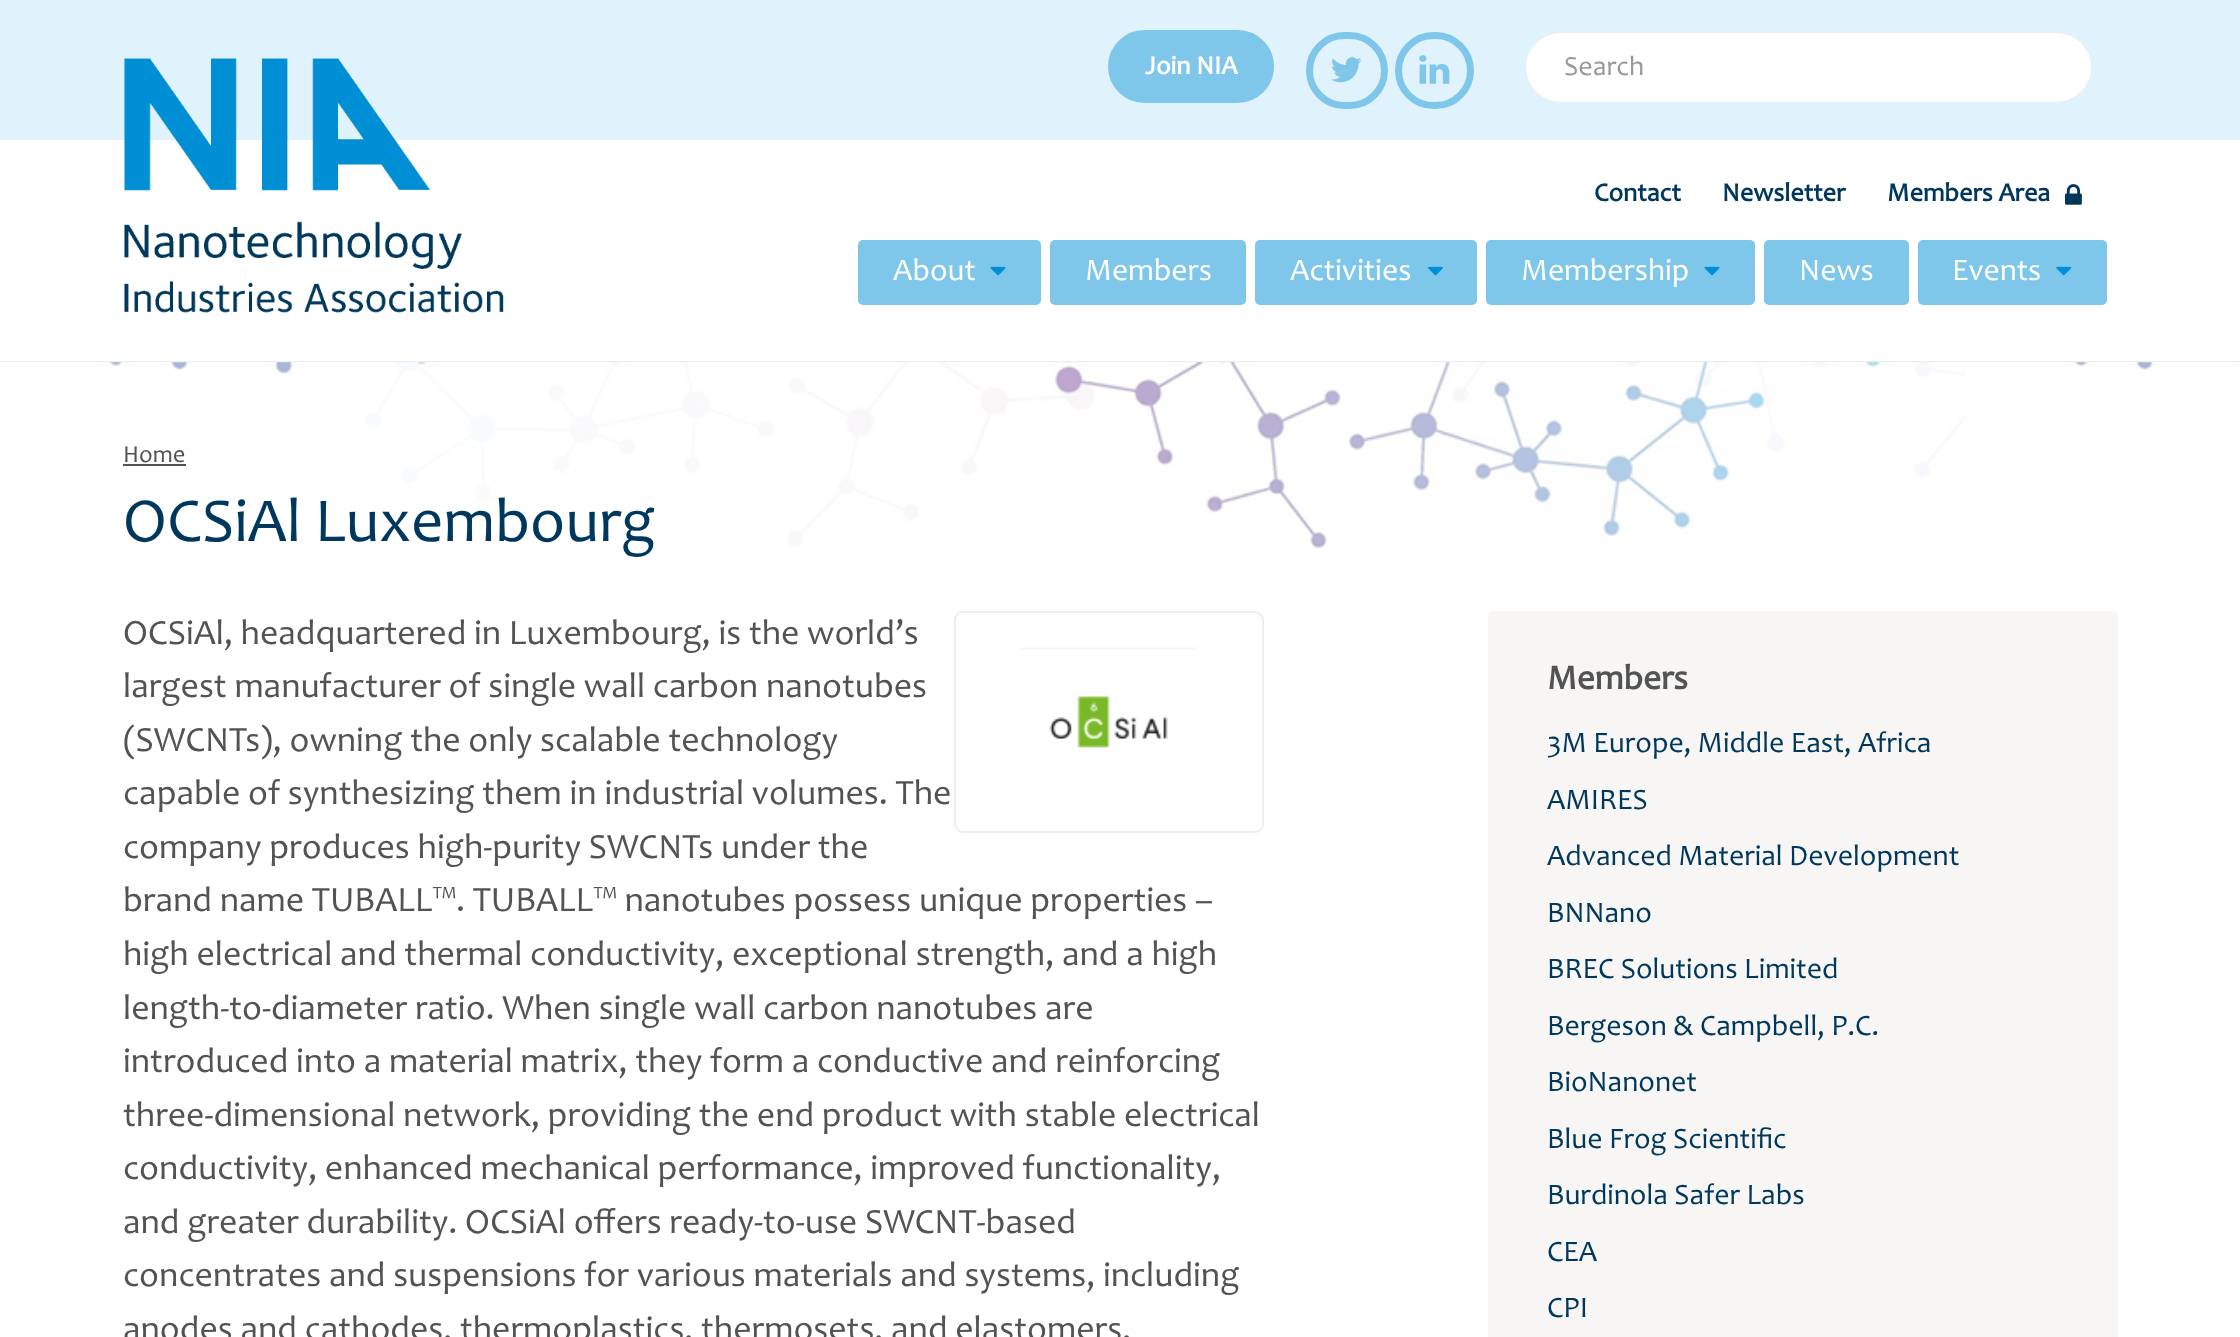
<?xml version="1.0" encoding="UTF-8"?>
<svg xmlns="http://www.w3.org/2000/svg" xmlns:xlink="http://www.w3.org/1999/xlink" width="2240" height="1337">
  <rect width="100%" height="100%" fill="#ffffff" />
  <rect width="2240" height="140" fill="#e0f2fb" />
  <rect y="361" width="2240" height="2" fill="#eeeeee" />
  <image x="124" y="58" width="380" height="255" xlink:href="image1.png" />
  <rect x="1109" y="31" width="164" height="71" rx="35.5" fill="#7fc7ea" stroke="#7fc7ea" stroke-width="2" />
  <rect x="1309.5" y="35.5" width="75" height="70" rx="35" fill="none" stroke="#7fc7ea" stroke-width="7" />
  <image x="1331" y="57" width="31" height="26" xlink:href="image2.png" />
  <rect x="1398.5" y="35.5" width="72" height="70" rx="35" fill="none" stroke="#7fc7ea" stroke-width="7" />
  <image x="1419" y="55" width="31" height="29" xlink:href="image3.png" />
  <rect x="1526" y="32" width="565" height="70" rx="35" fill="#ffffff" />
  <path d="M 1561 33 h 495 c 20 0 35 16 35 34 c 0 -19 -16 -35 -35 -35 h -495 c -19 0 -35 16 -35 36 c 0 -19 16 -35 35 -35 z" fill="#000000" fill-opacity="0.07" />
  <image x="2065" y="184" width="17" height="21" xlink:href="image4.png" />
  <rect x="858" y="240" width="183" height="65" rx="5" fill="#7fc7ea" />
  <image x="990" y="266" width="16" height="10" xlink:href="image5.png" />
  <rect x="1050" y="240" width="196" height="65" rx="5" fill="#7fc7ea" />
  <rect x="1255" y="240" width="222" height="65" rx="5" fill="#7fc7ea" />
  <image x="1428" y="266" width="15" height="10" xlink:href="image6.png" />
  <rect x="1486" y="240" width="269" height="65" rx="5" fill="#7fc7ea" />
  <image x="1704" y="266" width="16" height="10" xlink:href="image5.png" />
  <rect x="1764" y="240" width="145" height="65" rx="5" fill="#7fc7ea" />
  <rect x="1918" y="240" width="189" height="65" rx="5" fill="#7fc7ea" />
  <image x="2056" y="266" width="16" height="10" xlink:href="image7.png" />
  <image x="0" y="362" width="2240" height="187" xlink:href="image8.png" />
  <rect x="123" y="464" width="63" height="2" fill="#535353" />
  <rect x="955" y="612" width="308" height="220" rx="8" fill="none" stroke="#eeeeee" stroke-width="2" />
  <image x="1020" y="647" width="177" height="101" xlink:href="image9.png" />
  <rect x="1488" y="611" width="630" height="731" rx="5" fill="#f8f6f4" />
  <text x="1145" y="74" style="font-family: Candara; font-size: 26.25px; font-weight: bold; fill: #ffffff">Join NIA</text>
  <text x="1564" y="75" style="font-family: Candara; font-size: 28px; fill: #999999">Search</text>
  <text x="1594" y="201" style="font-family: Candara; font-size: 26.25px; font-weight: bold; fill: #00385d">Contact</text>
  <text x="1722" y="201" style="font-family: Candara; font-size: 26.25px; font-weight: bold; fill: #00385d">Newsletter</text>
  <text x="1887" y="201" style="font-family: Candara; font-size: 26.25px; font-weight: bold; fill: #00385d">Members Area</text>
  <text x="893" y="280" style="font-family: Candara; font-size: 31.5px; fill: #ffffff">About</text>
  <text x="1085" y="280" style="font-family: Candara; font-size: 31.5px; fill: #ffffff">Members</text>
  <text x="1290" y="280" style="font-family: Candara; font-size: 31.5px; fill: #ffffff">Activities</text>
  <text x="1521" y="280" style="font-family: Candara; font-size: 31.5px; fill: #ffffff">Membership</text>
  <text x="1799" y="280" style="font-family: Candara; font-size: 31.5px; fill: #ffffff">News</text>
  <text x="1952" y="280" style="font-family: Candara; font-size: 31.5px; fill: #ffffff">Events</text>
  <text x="123" y="462" style="font-family: Candara; font-size: 24.5px; fill: #535353">Home</text>
  <text x="123" y="541" style="font-family: Candara; font-size: 63px; fill: #00385d">OCSiAl Luxembourg</text>
  <text x="123" y="644" style="font-family: Candara; font-size: 35.7px; fill: #535353">OCSiAl, headquartered in Luxembourg, is the world’s</text>
  <text x="123" y="697" style="font-family: Candara; font-size: 35.7px; fill: #535353">largest manufacturer of single wall carbon nanotubes</text>
  <text x="123" y="751" style="font-family: Candara; font-size: 35.7px; fill: #535353">(SWCNTs), owning the only scalable technology</text>
  <text x="123" y="804" style="font-family: Candara; font-size: 35.7px; fill: #535353">capable of synthesizing them in industrial volumes. The</text>
  <text x="123" y="858" style="font-family: Candara; font-size: 35.7px; fill: #535353">company produces high-purity SWCNTs under the</text>
  <text x="123" y="911" style="font-family: Candara; font-size: 35.7px; fill: #535353">brand name TUBALL™. TUBALL™ nanotubes possess unique properties –</text>
  <text x="123" y="965" style="font-family: Candara; font-size: 35.7px; fill: #535353">high electrical and thermal conductivity, exceptional strength, and a high</text>
  <text x="123" y="1019" style="font-family: Candara; font-size: 35.7px; fill: #535353">length-to-diameter ratio. When single wall carbon nanotubes are</text>
  <text x="123" y="1072" style="font-family: Candara; font-size: 35.7px; fill: #535353">introduced into a material matrix, they form a conductive and reinforcing</text>
  <text x="123" y="1126" style="font-family: Candara; font-size: 35.7px; fill: #535353">three-dimensional network, providing the end product with stable electrical</text>
  <text x="123" y="1179" style="font-family: Candara; font-size: 35.7px; fill: #535353">conductivity, enhanced mechanical performance, improved functionality,</text>
  <text x="123" y="1233" style="font-family: Candara; font-size: 35.7px; fill: #535353">and greater durability. OCSiAl offers ready-to-use SWCNT-based</text>
  <text x="123" y="1286" style="font-family: Candara; font-size: 35.7px; fill: #535353">concentrates and suspensions for various materials and systems, including</text>
  <text x="123" y="1340" style="font-family: Candara; font-size: 35.7px; fill: #535353">anodes and cathodes, thermoplastics, thermosets, and elastomers.</text>
  <text x="1547" y="689" style="font-family: Candara; font-size: 35px; font-weight: bold; fill: #535353">Members</text>
  <text x="1547" y="752" style="font-family: Candara; font-size: 29.75px; fill: #00385d">3M Europe, Middle East, Africa</text>
  <text x="1547" y="809" style="font-family: Candara; font-size: 29.75px; fill: #00385d">AMIRES</text>
  <text x="1547" y="865" style="font-family: Candara; font-size: 29.75px; fill: #00385d">Advanced Material Development</text>
  <text x="1547" y="922" style="font-family: Candara; font-size: 29.75px; fill: #00385d">BNNano</text>
  <text x="1547" y="978" style="font-family: Candara; font-size: 29.75px; fill: #00385d">BREC Solutions Limited</text>
  <text x="1547" y="1035" style="font-family: Candara; font-size: 29.75px; fill: #00385d">Bergeson &amp; Campbell, P.C.</text>
  <text x="1547" y="1091" style="font-family: Candara; font-size: 29.75px; fill: #00385d">BioNanonet</text>
  <text x="1547" y="1148" style="font-family: Candara; font-size: 29.75px; fill: #00385d">Blue Frog Scientific</text>
  <text x="1547" y="1204" style="font-family: Candara; font-size: 29.75px; fill: #00385d">Burdinola Safer Labs</text>
  <text x="1547" y="1261" style="font-family: Candara; font-size: 29.75px; fill: #00385d">CEA</text>
  <text x="1547" y="1317" style="font-family: Candara; font-size: 29.75px; fill: #00385d">CPI</text>
</svg>
